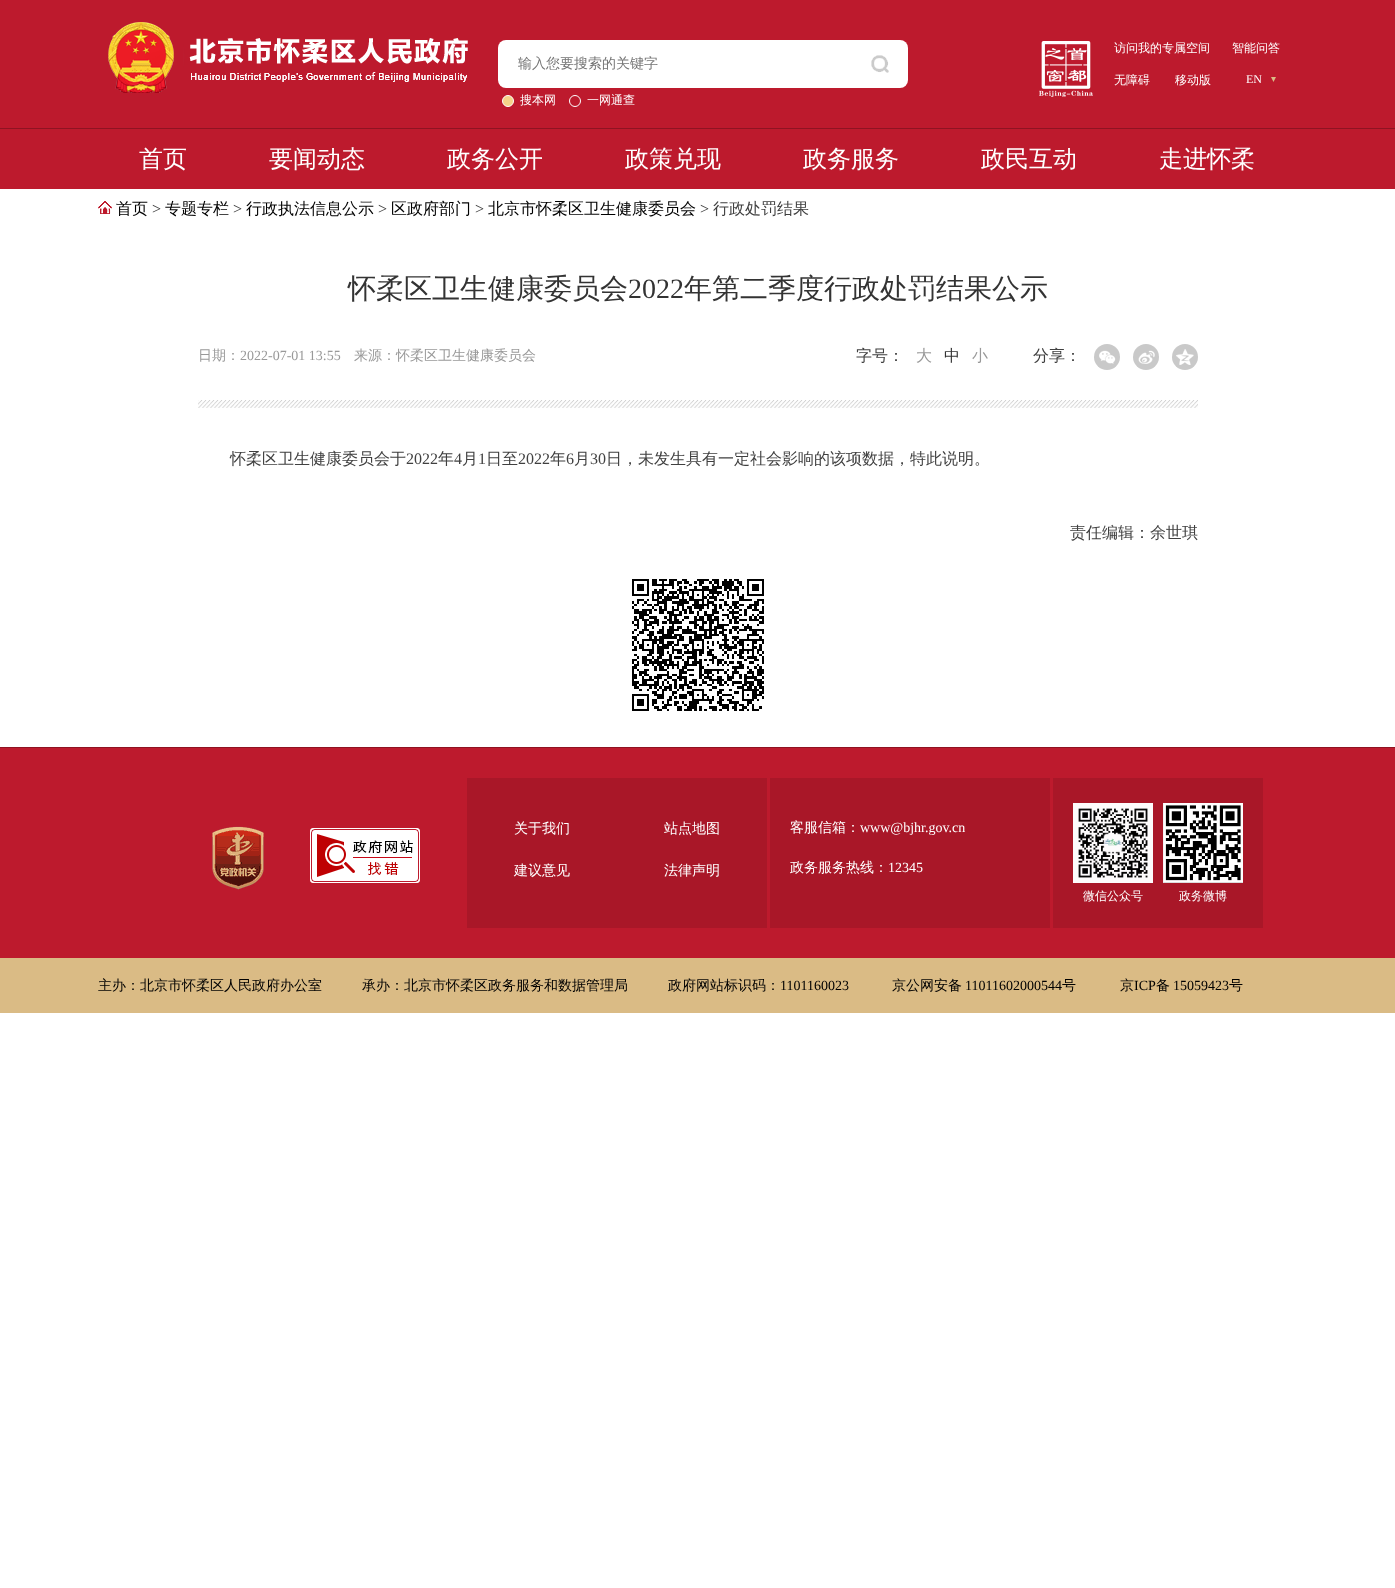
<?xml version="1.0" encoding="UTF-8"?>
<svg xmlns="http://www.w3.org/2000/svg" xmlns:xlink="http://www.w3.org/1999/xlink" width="1395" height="1588">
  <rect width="100%" height="100%" fill="#ffffff" />
  <rect width="1395" height="128" fill="#bd1a2d" />
  <rect y="128" width="1395" height="1" fill="#8f1322" />
  <image x="108" y="22" width="360" height="71" xlink:href="image1.png" />
  <rect x="498" y="40" width="410" height="48" rx="8" fill="#ffffff" />
  <image x="871" y="55" width="18" height="18" xlink:href="image2.png" />
  <circle cx="508" cy="101" r="5.5" fill="#f5d389" stroke="#ffffff" />
  <circle cx="575" cy="101" r="5.5" fill="none" stroke="#ffffff" />
  <image x="1039" y="41" width="54" height="56" xlink:href="image3.png" />
  <image x="1271" y="77" width="5" height="5" xlink:href="image4.png" />
  <rect y="129" width="1395" height="60" fill="#bd1a2d" />
  <image x="98" y="201" width="14" height="13" xlink:href="image5.png" />
  <circle cx="1107" cy="357" r="13" fill="#c9c9c9" />
  <image x="1099" y="350" width="17" height="14" xlink:href="image6.png" />
  <circle cx="1146" cy="357" r="13" fill="#c9c9c9" />
  <image x="1138" y="350" width="17" height="14" xlink:href="image7.png" />
  <circle cx="1185" cy="357" r="13" fill="#c9c9c9" />
  <image x="1176" y="349" width="18" height="16" xlink:href="image8.png" />
  <image x="198" y="400" width="1000" height="8" xlink:href="image9.png" />
  <image x="632" y="579" width="132" height="132" xlink:href="image10.png" />
  <rect y="748" width="1395" height="210" fill="#bd1a2d" />
  <rect y="747" width="1395" height="1" fill="#8f1322" />
  <image x="212" y="826" width="52" height="64" xlink:href="image11.png" />
  <image x="310" y="828" width="110" height="55" xlink:href="image12.png" />
  <rect x="467" y="778" width="300" height="150" fill="#a91728" />
  <rect x="770" y="778" width="280" height="150" fill="#a91728" />
  <rect x="1053" y="778" width="210" height="150" fill="#a91728" />
  <image x="1073" y="803" width="80" height="80" xlink:href="image13.png" />
  <image x="1163" y="803" width="80" height="80" xlink:href="image14.png" />
  <rect y="958" width="1395" height="55" fill="#dabb85" />
  <text x="518" y="68" style="font-family: WenQuanYi Zen Hei; font-size: 14px; font-weight: 500; fill: #757575">输入您要搜索的关键字</text>
  <text x="520" y="104" style="font-family: WenQuanYi Zen Hei; font-size: 12px; font-weight: 500; fill: #ffffff">搜本网</text>
  <text x="587" y="104" style="font-family: WenQuanYi Zen Hei; font-size: 12px; font-weight: 500; fill: #ffffff">一网通查</text>
  <text x="1114" y="52" style="font-family: WenQuanYi Zen Hei; font-size: 12px; font-weight: 500; fill: #ffffff">访问我的专属空间</text>
  <text x="1232" y="52" style="font-family: WenQuanYi Zen Hei; font-size: 12px; font-weight: 500; fill: #ffffff">智能问答</text>
  <text x="1114" y="84" style="font-family: WenQuanYi Zen Hei; font-size: 12px; font-weight: 500; fill: #ffffff">无障碍</text>
  <text x="1175" y="84" style="font-family: WenQuanYi Zen Hei; font-size: 12px; font-weight: 500; fill: #ffffff">移动版</text>
  <text x="1246" y="83" style="font-family: Liberation Serif; font-size: 12px; fill: #ffffff">EN</text>
  <text x="139" y="167" style="font-family: WenQuanYi Zen Hei; font-size: 24px; font-weight: 500; fill: #ffffff">首页</text>
  <text x="269" y="167" style="font-family: WenQuanYi Zen Hei; font-size: 24px; font-weight: 500; fill: #ffffff">要闻动态</text>
  <text x="447" y="167" style="font-family: WenQuanYi Zen Hei; font-size: 24px; font-weight: 500; fill: #ffffff">政务公开</text>
  <text x="625" y="167" style="font-family: WenQuanYi Zen Hei; font-size: 24px; font-weight: 500; fill: #ffffff">政策兑现</text>
  <text x="803" y="167" style="font-family: WenQuanYi Zen Hei; font-size: 24px; font-weight: 500; fill: #ffffff">政务服务</text>
  <text x="981" y="167" style="font-family: WenQuanYi Zen Hei; font-size: 24px; font-weight: 500; fill: #ffffff">政民互动</text>
  <text x="1159" y="167" style="font-family: WenQuanYi Zen Hei; font-size: 24px; font-weight: 500; fill: #ffffff">走进怀柔</text>
  <text x="116" y="214" style="font-family: WenQuanYi Zen Hei; font-size: 16px; font-weight: 500; fill: #000000">首页</text>
  <text x="152" y="214" style="font-family: Liberation Serif; font-size: 16px; fill: #404040">&gt;</text>
  <text x="165" y="214" style="font-family: WenQuanYi Zen Hei; font-size: 16px; font-weight: 500; fill: #000000">专题专栏</text>
  <text x="233" y="214" style="font-family: Liberation Serif; font-size: 16px; fill: #404040">&gt;</text>
  <text x="246" y="214" style="font-family: WenQuanYi Zen Hei; font-size: 16px; font-weight: 500; fill: #000000">行政执法信息公示</text>
  <text x="378" y="214" style="font-family: Liberation Serif; font-size: 16px; fill: #404040">&gt;</text>
  <text x="391" y="214" style="font-family: WenQuanYi Zen Hei; font-size: 16px; font-weight: 500; fill: #000000">区政府部门</text>
  <text x="475" y="214" style="font-family: Liberation Serif; font-size: 16px; fill: #404040">&gt;</text>
  <text x="488" y="214" style="font-family: WenQuanYi Zen Hei; font-size: 16px; font-weight: 500; fill: #000000">北京市怀柔区卫生健康委员会</text>
  <text x="700" y="214" style="font-family: Liberation Serif; font-size: 16px; fill: #404040">&gt;</text>
  <text x="713" y="214" style="font-family: WenQuanYi Zen Hei; font-size: 16px; font-weight: 500; fill: #404040">行政处罚结果</text>
  <text x="348" y="298" style="font-family: WenQuanYi Zen Hei; font-size: 28px; font-weight: 500; fill: #333333">怀柔区卫生健康委员会</text>
  <text x="628" y="298" style="font-family: Liberation Serif; font-size: 28px; fill: #333333">2022</text>
  <text x="684" y="298" style="font-family: WenQuanYi Zen Hei; font-size: 28px; font-weight: 500; fill: #333333">年第二季度行政处罚结果公示</text>
  <text x="198" y="360" style="font-family: WenQuanYi Zen Hei; font-size: 14px; font-weight: 500; fill: #999999">日期：</text>
  <text x="240" y="360" style="font-family: Liberation Serif; font-size: 14px; fill: #999999">2022-07-01 13:55</text>
  <text x="354" y="360" style="font-family: WenQuanYi Zen Hei; font-size: 14px; font-weight: 500; fill: #999999">来源：怀柔区卫生健康委员会</text>
  <text x="856" y="361" style="font-family: WenQuanYi Zen Hei; font-size: 16px; font-weight: 500; fill: #404040">字号：</text>
  <text x="916" y="361" style="font-family: WenQuanYi Zen Hei; font-size: 16px; font-weight: 500; fill: #999999">大</text>
  <text x="944" y="361" style="font-family: WenQuanYi Zen Hei; font-size: 16px; font-weight: 500; fill: #333333">中</text>
  <text x="972" y="361" style="font-family: WenQuanYi Zen Hei; font-size: 16px; font-weight: 500; fill: #999999">小</text>
  <text x="1033" y="361" style="font-family: WenQuanYi Zen Hei; font-size: 16px; font-weight: 500; fill: #404040">分享：</text>
  <text x="230" y="464" style="font-family: WenQuanYi Zen Hei; font-size: 16px; font-weight: 500; fill: #404040">怀柔区卫生健康委员会于</text>
  <text x="406" y="464" style="font-family: Liberation Serif; font-size: 16px; fill: #404040">2022</text>
  <text x="438" y="464" style="font-family: WenQuanYi Zen Hei; font-size: 16px; font-weight: 500; fill: #404040">年</text>
  <text x="454" y="464" style="font-family: Liberation Serif; font-size: 16px; fill: #404040">4</text>
  <text x="462" y="464" style="font-family: WenQuanYi Zen Hei; font-size: 16px; font-weight: 500; fill: #404040">月</text>
  <text x="478" y="464" style="font-family: Liberation Serif; font-size: 16px; fill: #404040">1</text>
  <text x="486" y="464" style="font-family: WenQuanYi Zen Hei; font-size: 16px; font-weight: 500; fill: #404040">日至</text>
  <text x="518" y="464" style="font-family: Liberation Serif; font-size: 16px; fill: #404040">2022</text>
  <text x="550" y="464" style="font-family: WenQuanYi Zen Hei; font-size: 16px; font-weight: 500; fill: #404040">年</text>
  <text x="566" y="464" style="font-family: Liberation Serif; font-size: 16px; fill: #404040">6</text>
  <text x="574" y="464" style="font-family: WenQuanYi Zen Hei; font-size: 16px; font-weight: 500; fill: #404040">月</text>
  <text x="590" y="464" style="font-family: Liberation Serif; font-size: 16px; fill: #404040">30</text>
  <text x="606" y="464" style="font-family: WenQuanYi Zen Hei; font-size: 16px; font-weight: 500; fill: #404040">日，未发生具有一定社会影响的该项数据，特此说明。</text>
  <text x="1070" y="538" style="font-family: WenQuanYi Zen Hei; font-size: 16px; font-weight: 500; fill: #404040">责任编辑：余世琪</text>
  <text x="514" y="833" style="font-family: WenQuanYi Zen Hei; font-size: 14px; font-weight: 500; fill: #ffffff">关于我们</text>
  <text x="664" y="833" style="font-family: WenQuanYi Zen Hei; font-size: 14px; font-weight: 500; fill: #ffffff">站点地图</text>
  <text x="514" y="875" style="font-family: WenQuanYi Zen Hei; font-size: 14px; font-weight: 500; fill: #ffffff">建议意见</text>
  <text x="664" y="875" style="font-family: WenQuanYi Zen Hei; font-size: 14px; font-weight: 500; fill: #ffffff">法律声明</text>
  <text x="790" y="832" style="font-family: WenQuanYi Zen Hei; font-size: 14px; font-weight: 500; fill: #ffffff">客服信箱：</text>
  <text x="860" y="832" style="font-family: Liberation Serif; font-size: 14px; fill: #ffffff">www@bjhr.gov.cn</text>
  <text x="790" y="872" style="font-family: WenQuanYi Zen Hei; font-size: 14px; font-weight: 500; fill: #ffffff">政务服务热线：</text>
  <text x="888" y="872" style="font-family: Liberation Serif; font-size: 14px; fill: #ffffff">12345</text>
  <text x="1083" y="900" style="font-family: WenQuanYi Zen Hei; font-size: 12px; font-weight: 500; fill: #ffffff">微信公众号</text>
  <text x="1179" y="900" style="font-family: WenQuanYi Zen Hei; font-size: 12px; font-weight: 500; fill: #ffffff">政务微博</text>
  <text x="98" y="990" style="font-family: WenQuanYi Zen Hei; font-size: 14px; font-weight: 500; fill: #000000">主办：北京市怀柔区人民政府办公室</text>
  <text x="362" y="990" style="font-family: WenQuanYi Zen Hei; font-size: 14px; font-weight: 500; fill: #000000">承办：北京市怀柔区政务服务和数据管理局</text>
  <text x="668" y="990" style="font-family: WenQuanYi Zen Hei; font-size: 14px; font-weight: 500; fill: #000000">政府网站标识码：</text>
  <text x="780" y="990" style="font-family: Liberation Serif; font-size: 14px; fill: #000000">1101160023</text>
  <text x="892" y="990" style="font-family: WenQuanYi Zen Hei; font-size: 14px; font-weight: 500; fill: #000000">京公网安备</text>
  <text x="965" y="990" style="font-family: Liberation Serif; font-size: 14px; fill: #000000">11011602000544</text>
  <text x="1062" y="990" style="font-family: WenQuanYi Zen Hei; font-size: 14px; font-weight: 500; fill: #000000">号</text>
  <text x="1120" y="990" style="font-family: WenQuanYi Zen Hei; font-size: 14px; font-weight: 500; fill: #000000">京</text>
  <text x="1134" y="990" style="font-family: Liberation Serif; font-size: 14px; fill: #000000">ICP</text>
  <text x="1156" y="990" style="font-family: WenQuanYi Zen Hei; font-size: 14px; font-weight: 500; fill: #000000">备</text>
  <text x="1173" y="990" style="font-family: Liberation Serif; font-size: 14px; fill: #000000">15059423</text>
  <text x="1229" y="990" style="font-family: WenQuanYi Zen Hei; font-size: 14px; font-weight: 500; fill: #000000">号</text>
</svg>
